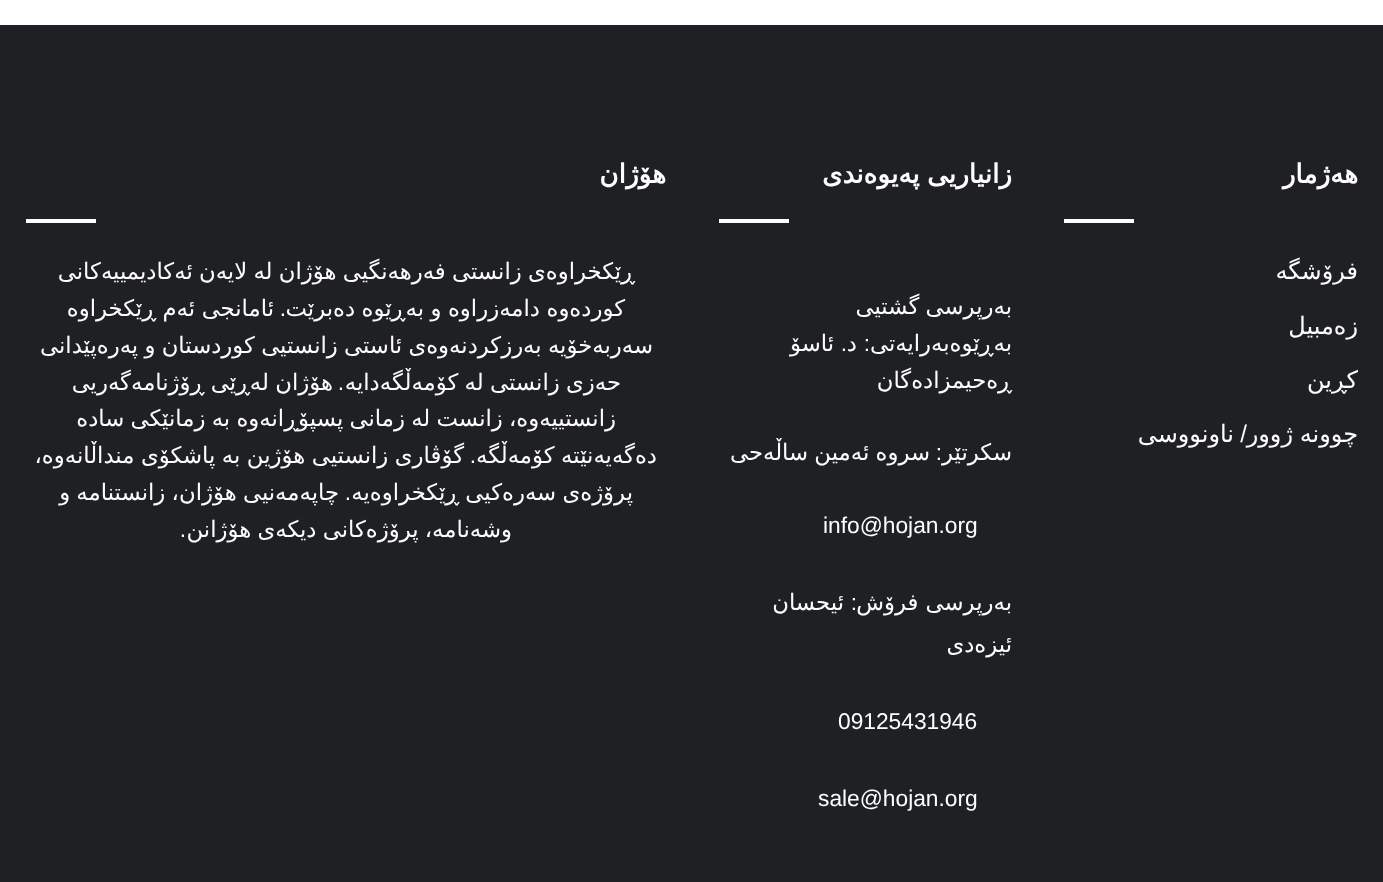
<?xml version="1.0" encoding="UTF-8"?>
<svg xmlns="http://www.w3.org/2000/svg" xmlns:xlink="http://www.w3.org/1999/xlink" width="1383" height="882">
  <rect width="100%" height="100%" fill="#ffffff" />
  <rect y="25" width="1383" height="857" fill="#1f2024" />
  <rect x="1064" y="219" width="70" height="4" fill="#fdfdfd" />
  <rect x="719" y="219" width="70" height="4" fill="#fdfdfd" />
  <rect x="26" y="219" width="70" height="4" fill="#fdfdfd" />
  <text x="1358" y="183" style="font-family: DejaVu Sans; font-size: 26.25px; font-weight: bold; direction: rtl; fill: #fdfdfd">هەژمار</text>
  <text x="1358" y="279" style="font-family: DejaVu Sans; font-size: 24px; direction: rtl; fill: #fdfdfd">فرۆشگە</text>
  <text x="1358" y="334" style="font-family: DejaVu Sans; font-size: 24px; direction: rtl; fill: #fdfdfd">زەمبیل</text>
  <text x="1358" y="388" style="font-family: DejaVu Sans; font-size: 24px; direction: rtl; fill: #fdfdfd">کڕین</text>
  <text x="1247" y="442" style="font-family: Liberation Sans; font-size: 24px; direction: rtl; fill: #fdfdfd">/</text>
  <text x="1358" y="442" word-spacing="-1" style="font-family: DejaVu Sans; font-size: 24px; direction: rtl; fill: #fdfdfd">چوونە ژوور</text>
  <text x="1234" y="442" style="font-family: DejaVu Sans; font-size: 24px; direction: rtl; fill: #fdfdfd">ناونووسی</text>
  <text x="1012" y="183" word-spacing="-1" style="font-family: DejaVu Sans; font-size: 26.25px; font-weight: bold; direction: rtl; fill: #fdfdfd">زانیاریی پەیوەندی</text>
  <text x="1012" y="314" word-spacing="-1" style="font-family: DejaVu Sans; font-size: 22.75px; direction: rtl; fill: #fdfdfd">بەرپرسی گشتیی</text>
  <text x="1012" y="351" style="font-family: DejaVu Sans; font-size: 22.75px; direction: rtl; fill: #fdfdfd">بەڕێوەبەرایەتی</text>
  <text x="870" y="351" style="font-family: Liberation Sans; font-size: 22.75px; direction: rtl; fill: #fdfdfd">:</text>
  <text x="857" y="351" style="font-family: DejaVu Sans; font-size: 22.75px; direction: rtl; fill: #fdfdfd">د</text>
  <text x="847" y="351" style="font-family: Liberation Sans; font-size: 22.75px; direction: rtl; fill: #fdfdfd">.</text>
  <text x="834" y="351" style="font-family: DejaVu Sans; font-size: 22.75px; direction: rtl; fill: #fdfdfd">ئاسۆ</text>
  <text x="1012" y="388" style="font-family: DejaVu Sans; font-size: 22.75px; direction: rtl; fill: #fdfdfd">ڕەحیمزادەگان</text>
  <text x="1012" y="460" style="font-family: DejaVu Sans; font-size: 22.75px; direction: rtl; fill: #fdfdfd">سکرتێر</text>
  <text x="942" y="460" style="font-family: Liberation Sans; font-size: 22.75px; direction: rtl; fill: #fdfdfd">:</text>
  <text x="930" y="460" word-spacing="-1" style="font-family: DejaVu Sans; font-size: 22.75px; direction: rtl; fill: #fdfdfd">سروە ئەمین ساڵەحی</text>
  <text x="823" y="533" style="font-family: Liberation Sans; font-size: 22.75px; fill: #fdfdfd">info@hojan.org</text>
  <text x="1012" y="610" style="font-family: DejaVu Sans; font-size: 22.75px; direction: rtl; fill: #fdfdfd">بەرپرسی فرۆش</text>
  <text x="857" y="610" style="font-family: Liberation Sans; font-size: 22.75px; direction: rtl; fill: #fdfdfd">:</text>
  <text x="844" y="610" style="font-family: DejaVu Sans; font-size: 22.75px; direction: rtl; fill: #fdfdfd">ئیحسان</text>
  <text x="1012" y="652" style="font-family: DejaVu Sans; font-size: 22.75px; direction: rtl; fill: #fdfdfd">ئیزەدی</text>
  <text x="838" y="729" style="font-family: Liberation Sans; font-size: 22.75px; fill: #fdfdfd">09125431946</text>
  <text x="818" y="806" style="font-family: Liberation Sans; font-size: 22.75px; fill: #fdfdfd">sale@hojan.org</text>
  <text x="666" y="183" style="font-family: DejaVu Sans; font-size: 26.25px; font-weight: bold; direction: rtl; fill: #fdfdfd">هۆژان</text>
  <text x="635" y="279" word-spacing="-1" style="font-family: DejaVu Sans; font-size: 22.75px; direction: rtl; fill: #fdfdfd">ڕێکخراوەی زانستی فەرهەنگیی هۆژان لە لایەن ئەکادیمییەکانی</text>
  <text x="625" y="316" word-spacing="-0.75" style="font-family: DejaVu Sans; font-size: 22.75px; direction: rtl; fill: #fdfdfd">کوردەوە دامەزراوە و بەڕێوە دەبرێت</text>
  <text x="286" y="316" style="font-family: Liberation Sans; font-size: 22.75px; direction: rtl; fill: #fdfdfd">.</text>
  <text x="274" y="316" word-spacing="-0.75" style="font-family: DejaVu Sans; font-size: 22.75px; direction: rtl; fill: #fdfdfd">ئامانجی ئەم ڕێکخراوە</text>
  <text x="653" y="353" word-spacing="-1" style="font-family: DejaVu Sans; font-size: 22.75px; direction: rtl; fill: #fdfdfd">سەربەخۆیە بەرزکردنەوەی ئاستی زانستیی کوردستان و پەرەپێدانی</text>
  <text x="621" y="390" word-spacing="-1" style="font-family: DejaVu Sans; font-size: 22.75px; direction: rtl; fill: #fdfdfd">حەزی زانستی لە کۆمەڵگەدایە</text>
  <text x="344" y="390" style="font-family: Liberation Sans; font-size: 22.75px; direction: rtl; fill: #fdfdfd">.</text>
  <text x="333" y="390" word-spacing="-1" style="font-family: DejaVu Sans; font-size: 22.75px; direction: rtl; fill: #fdfdfd">هۆژان لەڕێی ڕۆژنامەگەریی</text>
  <text x="616" y="426" word-spacing="-1" style="font-family: DejaVu Sans; font-size: 22.75px; direction: rtl; fill: #fdfdfd">زانستییەوە، زانست لە زمانی پسپۆڕانەوە بە زمانێکی سادە</text>
  <text x="657" y="463" word-spacing="-0.75" style="font-family: DejaVu Sans; font-size: 22.75px; direction: rtl; fill: #fdfdfd">دەگەیەنێتە کۆمەڵگە</text>
  <text x="476" y="463" style="font-family: Liberation Sans; font-size: 22.75px; direction: rtl; fill: #fdfdfd">.</text>
  <text x="464" y="463" word-spacing="-0.75" style="font-family: DejaVu Sans; font-size: 22.75px; direction: rtl; fill: #fdfdfd">گۆڤاری زانستیی هۆژین بە پاشکۆی منداڵانەوە،</text>
  <text x="633" y="500" word-spacing="-1" style="font-family: DejaVu Sans; font-size: 22.75px; direction: rtl; fill: #fdfdfd">پرۆژەی سەرەکیی ڕێکخراوەیە</text>
  <text x="351" y="500" style="font-family: Liberation Sans; font-size: 22.75px; direction: rtl; fill: #fdfdfd">.</text>
  <text x="339" y="500" word-spacing="-1" style="font-family: DejaVu Sans; font-size: 22.75px; direction: rtl; fill: #fdfdfd">چاپەمەنیی هۆژان، زانستنامە و</text>
  <text x="512" y="537" word-spacing="-1" style="font-family: DejaVu Sans; font-size: 22.75px; direction: rtl; fill: #fdfdfd">وشەنامە، پرۆژەکانی دیکەی هۆژانن</text>
  <text x="186" y="537" style="font-family: Liberation Sans; font-size: 22.75px; direction: rtl; fill: #fdfdfd">.</text>
</svg>
